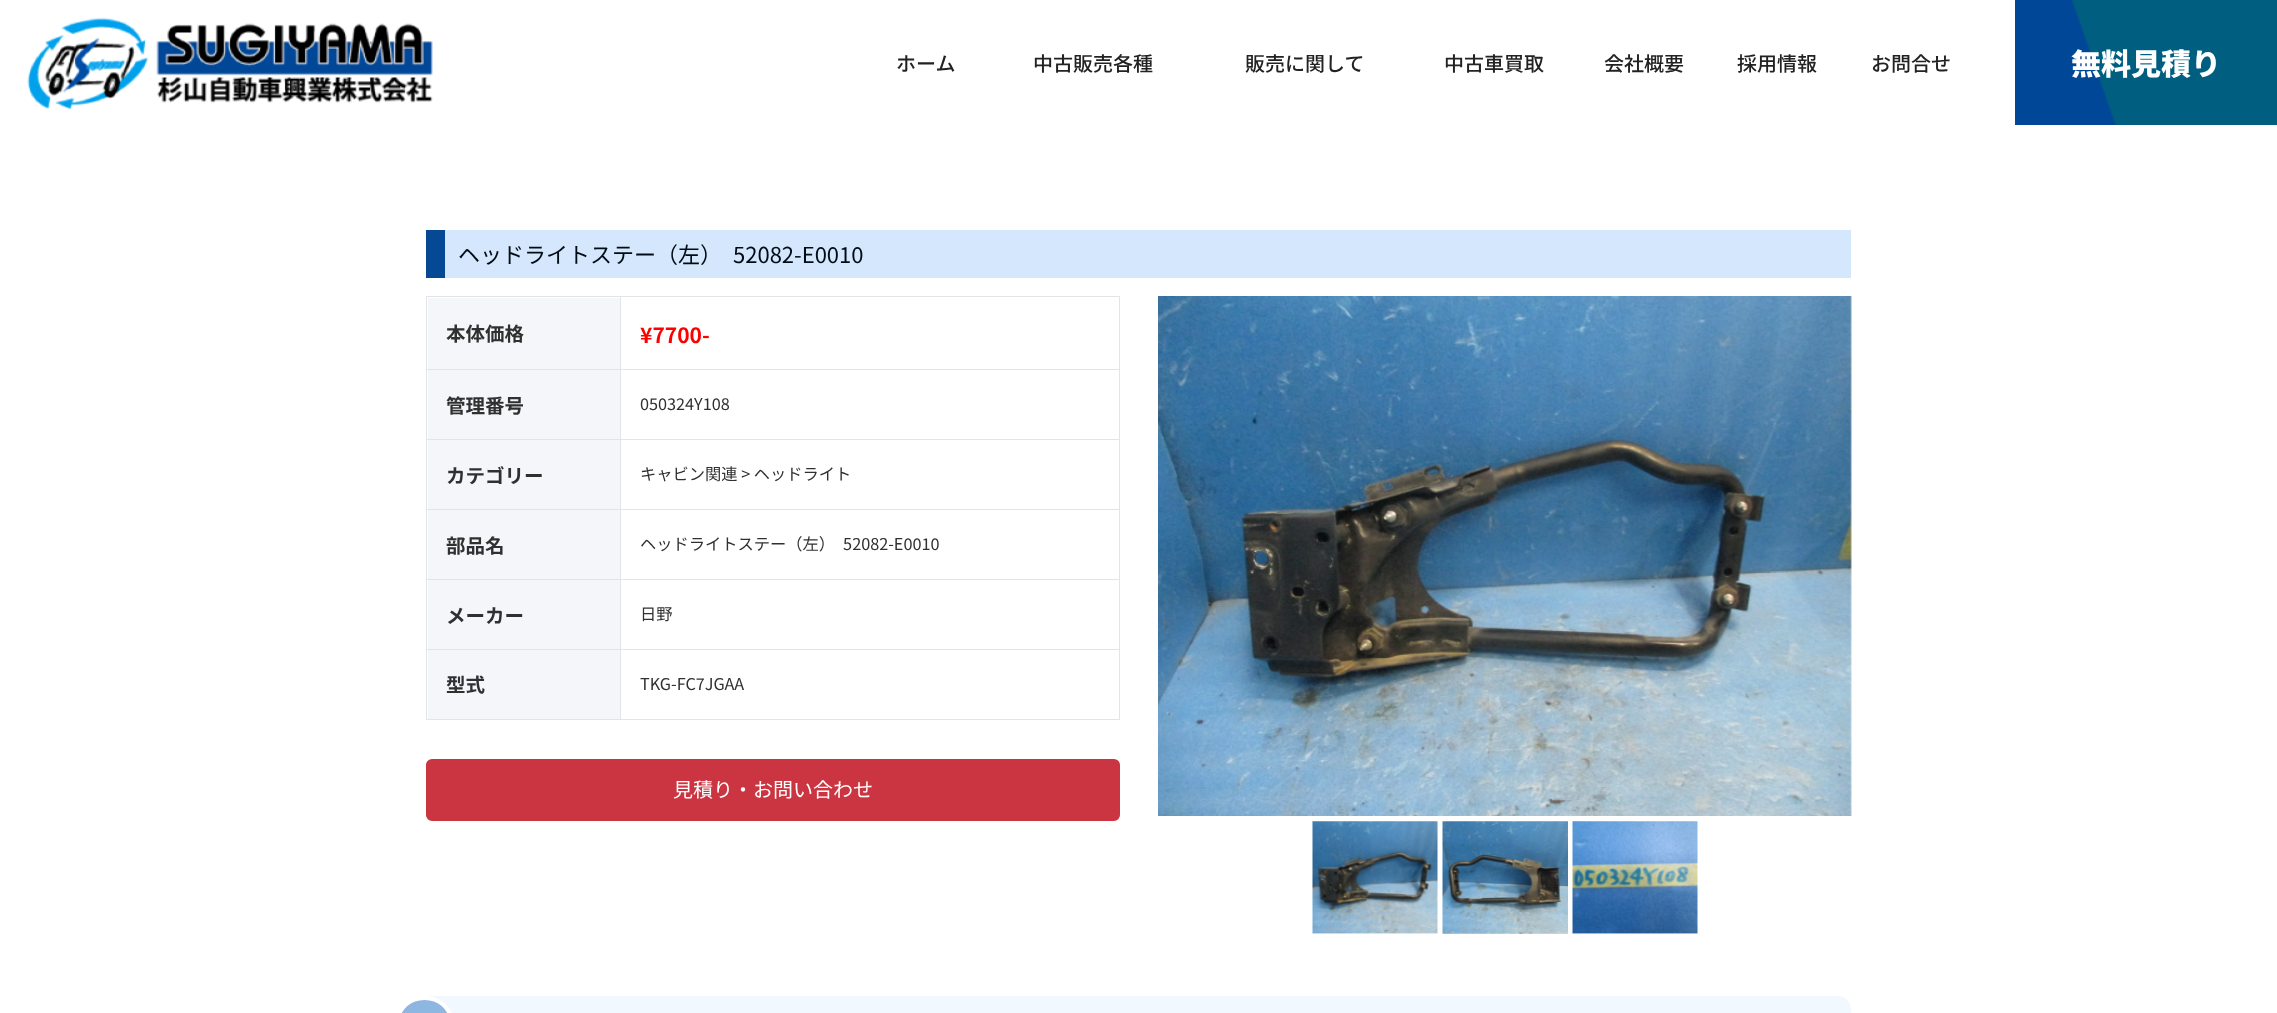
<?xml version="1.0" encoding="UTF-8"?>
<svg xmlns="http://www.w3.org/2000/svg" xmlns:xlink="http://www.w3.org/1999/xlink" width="2277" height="1013">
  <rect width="100%" height="100%" fill="#ffffff" />
  <image x="27" y="17" width="406" height="93" xlink:href="image1.png" />
  <image x="2015" y="0" width="262" height="125" xlink:href="image2.png" />
  <rect x="445" y="230" width="1406" height="48" fill="#d5e7fc" />
  <rect x="426" y="230" width="19" height="48" fill="#054995" />
  <rect x="428" y="298" width="192" height="71" fill="#f4f6fa" />
  <rect x="620" y="296" width="500" height="1" fill="#e2e5e8" />
  <rect x="620" y="369" width="500" height="1" fill="#e2e5e8" />
  <rect x="620" y="439" width="500" height="1" fill="#e2e5e8" />
  <rect x="620" y="509" width="500" height="1" fill="#e2e5e8" />
  <rect x="620" y="579" width="500" height="1" fill="#e2e5e8" />
  <rect x="620" y="649" width="500" height="1" fill="#e2e5e8" />
  <rect x="1119" y="649" width="1" height="71" fill="#e2e5e8" />
  <rect x="620" y="719" width="500" height="1" fill="#e2e5e8" />
  <rect x="620" y="649" width="1" height="71" fill="#e2e5e8" />
  <rect x="426" y="649" width="195" height="1" fill="#e2e5e8" />
  <rect x="620" y="579" width="1" height="71" fill="#e2e5e8" />
  <rect x="426" y="579" width="195" height="1" fill="#e2e5e8" />
  <rect x="620" y="509" width="1" height="71" fill="#e2e5e8" />
  <rect x="426" y="509" width="195" height="1" fill="#e2e5e8" />
  <rect x="620" y="439" width="1" height="71" fill="#e2e5e8" />
  <rect x="426" y="439" width="195" height="1" fill="#e2e5e8" />
  <rect x="620" y="369" width="1" height="71" fill="#e2e5e8" />
  <rect x="426" y="369" width="195" height="1" fill="#e2e5e8" />
  <rect x="620" y="296" width="1" height="74" fill="#e2e5e8" />
  <rect x="426" y="296" width="195" height="1" fill="#e2e5e8" />
  <rect x="426" y="719" width="195" height="1" fill="#e2e5e8" />
  <rect x="426" y="649" width="1" height="71" fill="#e2e5e8" />
  <rect x="426" y="579" width="1" height="71" fill="#e2e5e8" />
  <rect x="426" y="509" width="1" height="71" fill="#e2e5e8" />
  <rect x="426" y="439" width="1" height="71" fill="#e2e5e8" />
  <rect x="426" y="369" width="1" height="71" fill="#e2e5e8" />
  <rect x="426" y="296" width="1" height="74" fill="#e2e5e8" />
  <rect x="1119" y="579" width="1" height="71" fill="#e2e5e8" />
  <rect x="1119" y="509" width="1" height="71" fill="#e2e5e8" />
  <rect x="1119" y="439" width="1" height="71" fill="#e2e5e8" />
  <rect x="1119" y="369" width="1" height="71" fill="#e2e5e8" />
  <rect x="1119" y="296" width="1" height="74" fill="#e2e5e8" />
  <rect x="428" y="370" width="192" height="69" fill="#f4f6fa" />
  <rect x="428" y="440" width="192" height="69" fill="#f4f6fa" />
  <rect x="428" y="510" width="192" height="69" fill="#f4f6fa" />
  <rect x="428" y="580" width="192" height="69" fill="#f4f6fa" />
  <rect x="428" y="650" width="192" height="69" fill="#f4f6fa" />
  <rect x="427.5" y="760.5" width="691" height="59" rx="4.5" fill="#cb3541" stroke="#cb3541" stroke-width="3" />
  <image x="1158" y="296" width="694" height="520" xlink:href="image3.png" />
  <image x="1312" y="821" width="126" height="113" xlink:href="image4.png" />
  <image x="1442" y="821" width="126" height="113" xlink:href="image5.png" />
  <image x="1572" y="821" width="126" height="113" xlink:href="image6.png" />
  <path d="M 426 996 h 1412 c 7 0 13 6 13 13 v 4 c 0 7 -6 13 -13 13 h -1412 z" fill="#f2f8ff" />
  <rect x="398" y="998" width="53" height="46" rx="26.5" fill="#8db6e0" stroke="#ffffff" stroke-width="4" />
  <text x="896" y="71" style="font-family: Noto Sans JP; font-size: 20px; font-weight: 500; fill: #222222">ホーム</text>
  <text x="1033" y="71" style="font-family: Noto Sans JP; font-size: 20px; font-weight: 500; fill: #222222">中古販売各種</text>
  <text x="1245" y="71" style="font-family: Noto Sans JP; font-size: 20px; font-weight: 500; fill: #222222">販売に関して</text>
  <text x="1444" y="71" style="font-family: Noto Sans JP; font-size: 20px; font-weight: 500; fill: #222222">中古車買取</text>
  <text x="1604" y="71" style="font-family: Noto Sans JP; font-size: 20px; font-weight: 500; fill: #222222">会社概要</text>
  <text x="1737" y="71" style="font-family: Noto Sans JP; font-size: 20px; font-weight: 500; fill: #222222">採用情報</text>
  <text x="1871" y="71" style="font-family: Noto Sans JP; font-size: 20px; font-weight: 500; fill: #222222">お問合せ</text>
  <text x="2071" y="75" style="font-family: Noto Sans JP; font-size: 30px; font-weight: 900; fill: #ffffff">無料見積り</text>
  <text x="458" y="263" style="font-family: Noto Sans JP; font-size: 22px; fill: #000c15">ヘッドライトステー（左）　52082-E0010</text>
  <text x="446" y="341" style="font-family: Noto Sans JP; font-size: 19.5px; font-weight: bold; fill: #303030">本体価格</text>
  <text x="640" y="343" style="font-family: Noto Sans JP; font-size: 21px; font-weight: bold; fill: #ff0000">¥7700-</text>
  <text x="446" y="413" style="font-family: Noto Sans JP; font-size: 19.5px; font-weight: bold; fill: #303030">管理番号</text>
  <text x="640" y="410" style="font-family: Noto Sans JP; font-size: 16.25px; fill: #303030">050324Y108</text>
  <text x="446" y="483" style="font-family: Noto Sans JP; font-size: 19.5px; font-weight: bold; fill: #303030">カテゴリー</text>
  <text x="640" y="480" style="font-family: Noto Sans JP; font-size: 16.25px; fill: #303030">キャビン関連 &gt; ヘッドライト</text>
  <text x="446" y="553" style="font-family: Noto Sans JP; font-size: 19.5px; font-weight: bold; fill: #303030">部品名</text>
  <text x="640" y="550" style="font-family: Noto Sans JP; font-size: 16.25px; fill: #303030">ヘッドライトステー（左）　52082-E0010</text>
  <text x="446" y="623" style="font-family: Noto Sans JP; font-size: 19.5px; font-weight: bold; fill: #303030">メーカー</text>
  <text x="640" y="620" style="font-family: Noto Sans JP; font-size: 16.25px; fill: #303030">日野</text>
  <text x="446" y="692" style="font-family: Noto Sans JP; font-size: 19.5px; font-weight: bold; fill: #303030">型式</text>
  <text x="640" y="690" style="font-family: Noto Sans JP; font-size: 16.25px; fill: #303030">TKG-FC7JGAA</text>
  <text x="673" y="797" style="font-family: Noto Sans JP; font-size: 20px; fill: #ffffff">見積り・お問い合わせ</text>
</svg>
